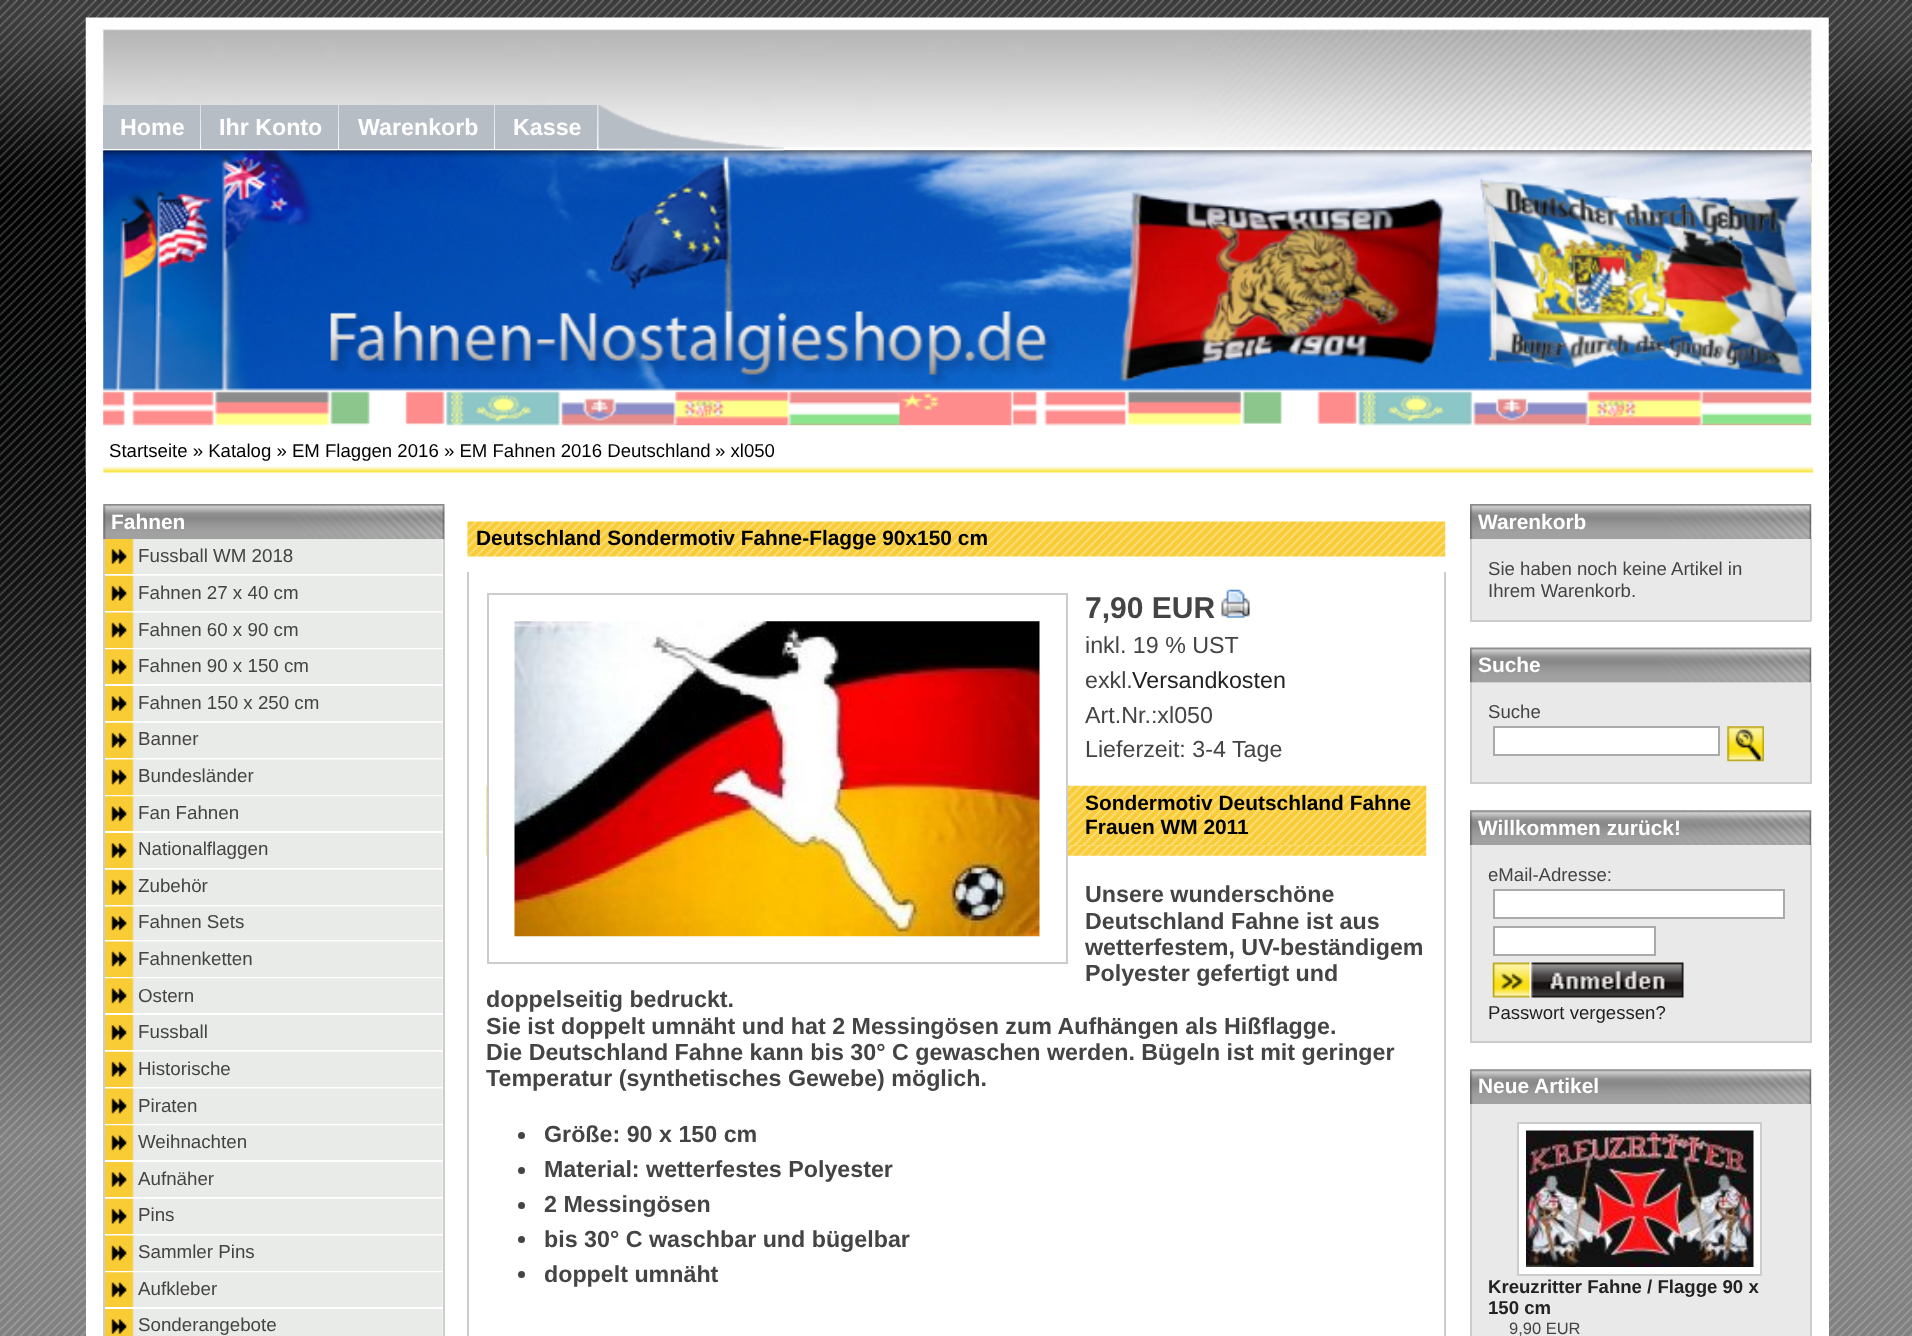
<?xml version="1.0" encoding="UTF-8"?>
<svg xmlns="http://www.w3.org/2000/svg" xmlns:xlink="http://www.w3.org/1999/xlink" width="1912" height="1336">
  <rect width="100%" height="100%" fill="#ffffff" />
  <image x="0" y="0" width="1912" height="1336" xlink:href="image1.png" />
  <image x="85" y="17" width="1744" height="305" xlink:href="image2.png" />
  <rect x="103" y="105" width="97" height="44" fill="#b7bdc5" />
  <rect x="201" y="105" width="137" height="44" fill="#b7bdc5" />
  <rect x="339" y="105" width="155" height="44" fill="#b7bdc5" />
  <rect x="495" y="105" width="102" height="44" fill="#b7bdc5" />
  <rect x="86" y="322" width="1743" height="1014" fill="#ffffff" />
  <image x="103" y="150" width="1709" height="276" xlink:href="image4.png" />
  <image x="598" y="105" width="186" height="46" xlink:href="image3.png" />
  <image x="85" y="427" width="1729" height="46" xlink:href="image5.png" />
  <image x="103" y="504" width="342" height="35" xlink:href="image6.png" />
  <rect x="443" y="539" width="2" height="797" fill="#cccccc" />
  <rect x="103" y="539" width="2" height="797" fill="#cccccc" />
  <image x="105" y="539" width="338" height="35" xlink:href="image7.png" />
  <image x="105" y="575" width="338" height="36" xlink:href="image8.png" />
  <image x="105" y="612" width="338" height="36" xlink:href="image9.png" />
  <image x="105" y="649" width="338" height="35" xlink:href="image10.png" />
  <image x="105" y="686" width="338" height="35" xlink:href="image7.png" />
  <image x="105" y="722" width="338" height="36" xlink:href="image8.png" />
  <image x="105" y="759" width="338" height="36" xlink:href="image9.png" />
  <image x="105" y="796" width="338" height="35" xlink:href="image10.png" />
  <image x="105" y="833" width="338" height="35" xlink:href="image7.png" />
  <image x="105" y="869" width="338" height="36" xlink:href="image8.png" />
  <image x="105" y="906" width="338" height="34" xlink:href="image11.png" />
  <image x="105" y="941" width="338" height="36" xlink:href="image9.png" />
  <image x="105" y="978" width="338" height="35" xlink:href="image10.png" />
  <image x="105" y="1015" width="338" height="35" xlink:href="image7.png" />
  <image x="105" y="1051" width="338" height="36" xlink:href="image8.png" />
  <image x="105" y="1088" width="338" height="36" xlink:href="image9.png" />
  <image x="105" y="1125" width="338" height="35" xlink:href="image10.png" />
  <image x="105" y="1162" width="338" height="35" xlink:href="image7.png" />
  <image x="105" y="1198" width="338" height="36" xlink:href="image8.png" />
  <image x="105" y="1235" width="338" height="36" xlink:href="image9.png" />
  <image x="105" y="1272" width="338" height="35" xlink:href="image10.png" />
  <image x="105" y="1309" width="338" height="27" xlink:href="image12.png" />
  <image x="467" y="521" width="979" height="36" xlink:href="image13.png" />
  <rect x="1444" y="572" width="2" height="764" fill="#cccccc" />
  <rect x="467" y="572" width="2" height="764" fill="#cccccc" />
  <image x="486" y="785" width="941" height="61" xlink:href="image16.png" />
  <image x="486" y="845" width="941" height="11" xlink:href="image17.png" />
  <rect x="489" y="785" width="577" height="71" fill="#ffffff" />
  <rect x="488" y="594" width="579" height="369" fill="none" stroke="#cccccc" stroke-width="2" />
  <image x="514" y="621" width="526" height="316" xlink:href="image14.png" />
  <image x="1221" y="589" width="29" height="29" xlink:href="image15.png" />
  <circle cx="521.5" cy="1135.5" r="3.5" fill="#444444" />
  <circle cx="521.5" cy="1170.5" r="3.5" fill="#444444" />
  <circle cx="521.5" cy="1205.5" r="3.5" fill="#444444" />
  <circle cx="521.5" cy="1239.5" r="3.5" fill="#444444" />
  <circle cx="521.5" cy="1274.5" r="3.5" fill="#444444" />
  <image x="1470" y="504" width="342" height="35" xlink:href="image18.png" />
  <rect x="1472" y="539" width="338" height="81" fill="#e9e9e9" />
  <rect x="1810" y="539" width="2" height="82" fill="#cccccc" />
  <rect x="1470" y="620" width="341" height="2" fill="#cccccc" />
  <rect x="1470" y="539" width="2" height="82" fill="#cccccc" />
  <image x="1470" y="647" width="342" height="36" xlink:href="image19.png" />
  <rect x="1472" y="683" width="338" height="99" fill="#e9e9e9" />
  <rect x="1810" y="683" width="2" height="101" fill="#cccccc" />
  <rect x="1470" y="782" width="341" height="2" fill="#cccccc" />
  <rect x="1470" y="683" width="2" height="101" fill="#cccccc" />
  <rect x="1494" y="727" width="225" height="28" fill="#ffffff" stroke="#aaaaaa" stroke-width="2" />
  <image x="1727" y="726" width="37" height="36" xlink:href="image20.png" />
  <image x="1470" y="810" width="342" height="35" xlink:href="image21.png" />
  <rect x="1472" y="845" width="338" height="196" fill="#e9e9e9" />
  <rect x="1810" y="845" width="2" height="198" fill="#cccccc" />
  <rect x="1470" y="1041" width="341" height="2" fill="#cccccc" />
  <rect x="1470" y="845" width="2" height="198" fill="#cccccc" />
  <rect x="1494" y="890" width="290" height="28" fill="#ffffff" stroke="#aaaaaa" stroke-width="2" />
  <rect x="1494" y="927" width="161" height="28" fill="#ffffff" stroke="#aaaaaa" stroke-width="2" />
  <image x="1492" y="962" width="192" height="36" xlink:href="image22.png" />
  <image x="1470" y="1069" width="342" height="35" xlink:href="image21.png" />
  <rect x="1472" y="1104" width="338" height="232" fill="#e9e9e9" />
  <rect x="1810" y="1104" width="2" height="232" fill="#cccccc" />
  <rect x="1470" y="1104" width="2" height="232" fill="#cccccc" />
  <rect x="1518" y="1123" width="243" height="152" fill="#ffffff" stroke="#cccccc" stroke-width="2" />
  <image x="1526" y="1130" width="228" height="137" xlink:href="image23.png" />
  <text x="120" y="135" style="font-family: Liberation Sans; font-size: 23.25px; font-weight: bold; fill: #ffffff">Home</text>
  <text x="219" y="135" style="font-family: Liberation Sans; font-size: 23.25px; font-weight: bold; fill: #ffffff">Ihr Konto</text>
  <text x="358" y="135" style="font-family: Liberation Sans; font-size: 23.25px; font-weight: bold; fill: #ffffff">Warenkorb</text>
  <text x="513" y="135" style="font-family: Liberation Sans; font-size: 23.25px; font-weight: bold; fill: #ffffff">Kasse</text>
  <text x="109" y="457" style="font-family: Liberation Sans; font-size: 18.6px; fill: #000000">Startseite » Katalog » EM Flaggen 2016 » EM Fahnen 2016 Deutschland</text>
  <text x="715" y="457" style="font-family: Liberation Sans; font-size: 18.6px; fill: #000000">» xl050</text>
  <text x="111" y="529" style="font-family: Liberation Sans; font-size: 20.9px; font-weight: bold; fill: #ffffff">Fahnen</text>
  <text x="138" y="562" style="font-family: Liberation Sans; font-size: 18.75px; fill: #444444">Fussball WM 2018</text>
  <text x="138" y="599" style="font-family: Liberation Sans; font-size: 18.75px; fill: #444444">Fahnen 27 x 40 cm</text>
  <text x="138" y="636" style="font-family: Liberation Sans; font-size: 18.75px; fill: #444444">Fahnen 60 x 90 cm</text>
  <text x="138" y="672" style="font-family: Liberation Sans; font-size: 18.75px; fill: #444444">Fahnen 90 x 150 cm</text>
  <text x="138" y="709" style="font-family: Liberation Sans; font-size: 18.75px; fill: #444444">Fahnen 150 x 250 cm</text>
  <text x="138" y="745" style="font-family: Liberation Sans; font-size: 18.75px; fill: #444444">Banner</text>
  <text x="138" y="782" style="font-family: Liberation Sans; font-size: 18.75px; fill: #444444">Bundesländer</text>
  <text x="138" y="819" style="font-family: Liberation Sans; font-size: 18.75px; fill: #444444">Fan Fahnen</text>
  <text x="138" y="855" style="font-family: Liberation Sans; font-size: 18.75px; fill: #444444">Nationalflaggen</text>
  <text x="138" y="892" style="font-family: Liberation Sans; font-size: 18.75px; fill: #444444">Zubehör</text>
  <text x="138" y="928" style="font-family: Liberation Sans; font-size: 18.75px; fill: #444444">Fahnen Sets</text>
  <text x="138" y="965" style="font-family: Liberation Sans; font-size: 18.75px; fill: #444444">Fahnenketten</text>
  <text x="138" y="1002" style="font-family: Liberation Sans; font-size: 18.75px; fill: #444444">Ostern</text>
  <text x="138" y="1038" style="font-family: Liberation Sans; font-size: 18.75px; fill: #444444">Fussball</text>
  <text x="138" y="1075" style="font-family: Liberation Sans; font-size: 18.75px; fill: #444444">Historische</text>
  <text x="138" y="1112" style="font-family: Liberation Sans; font-size: 18.75px; fill: #444444">Piraten</text>
  <text x="138" y="1148" style="font-family: Liberation Sans; font-size: 18.75px; fill: #444444">Weihnachten</text>
  <text x="138" y="1185" style="font-family: Liberation Sans; font-size: 18.75px; fill: #444444">Aufnäher</text>
  <text x="138" y="1221" style="font-family: Liberation Sans; font-size: 18.75px; fill: #444444">Pins</text>
  <text x="138" y="1258" style="font-family: Liberation Sans; font-size: 18.75px; fill: #444444">Sammler Pins</text>
  <text x="138" y="1295" style="font-family: Liberation Sans; font-size: 18.75px; fill: #444444">Aufkleber</text>
  <text x="138" y="1331" style="font-family: Liberation Sans; font-size: 18.75px; fill: #444444">Sonderangebote</text>
  <text x="476" y="545" style="font-family: Liberation Sans; font-size: 20.9px; font-weight: bold; fill: #000000">Deutschland Sondermotiv Fahne-Flagge 90x150 cm</text>
  <text x="1085" y="618" style="font-family: Liberation Sans; font-size: 30px; font-weight: bold; fill: #444444">7,90 EUR</text>
  <text x="1085" y="653" style="font-family: Liberation Sans; font-size: 23.25px; fill: #444444">inkl. 19 % UST</text>
  <text x="1085" y="688" style="font-family: Liberation Sans; font-size: 23.25px; fill: #444444">exkl.</text>
  <text x="1132" y="688" style="font-family: Liberation Sans; font-size: 23.25px; fill: #222222">Versandkosten</text>
  <text x="1085" y="723" style="font-family: Liberation Sans; font-size: 23.25px; fill: #444444">Art.Nr.:xl050</text>
  <text x="1085" y="757" style="font-family: Liberation Sans; font-size: 23.25px; fill: #444444">Lieferzeit: 3-4 Tage</text>
  <text x="1085" y="810" style="font-family: Liberation Sans; font-size: 20.9px; font-weight: bold; fill: #000000">Sondermotiv Deutschland Fahne</text>
  <text x="1085" y="834" style="font-family: Liberation Sans; font-size: 20.9px; font-weight: bold; fill: #000000">Frauen WM 2011</text>
  <text x="1085" y="902" style="font-family: Liberation Sans; font-size: 23.25px; font-weight: bold; fill: #444444">Unsere wunderschöne</text>
  <text x="1085" y="929" style="font-family: Liberation Sans; font-size: 23.25px; font-weight: bold; fill: #444444">Deutschland Fahne ist aus</text>
  <text x="1085" y="955" style="font-family: Liberation Sans; font-size: 23.25px; font-weight: bold; fill: #444444">wetterfestem, UV-beständigem</text>
  <text x="1085" y="981" style="font-family: Liberation Sans; font-size: 23.25px; font-weight: bold; fill: #444444">Polyester gefertigt und</text>
  <text x="486" y="1007" style="font-family: Liberation Sans; font-size: 23.25px; font-weight: bold; fill: #444444">doppelseitig bedruckt.</text>
  <text x="486" y="1034" style="font-family: Liberation Sans; font-size: 23.25px; font-weight: bold; fill: #444444">Sie ist doppelt umnäht und hat 2 Messingösen zum Aufhängen als Hißflagge.</text>
  <text x="486" y="1060" style="font-family: Liberation Sans; font-size: 23.25px; font-weight: bold; fill: #444444">Die Deutschland Fahne kann bis 30° C gewaschen werden. Bügeln ist mit geringer</text>
  <text x="486" y="1086" style="font-family: Liberation Sans; font-size: 23.25px; font-weight: bold; fill: #444444">Temperatur (synthetisches Gewebe) möglich.</text>
  <text x="544" y="1142" style="font-family: Liberation Sans; font-size: 23.25px; font-weight: bold; fill: #444444">Größe: 90 x 150 cm</text>
  <text x="544" y="1177" style="font-family: Liberation Sans; font-size: 23.25px; font-weight: bold; fill: #444444">Material: wetterfestes Polyester</text>
  <text x="544" y="1212" style="font-family: Liberation Sans; font-size: 23.25px; font-weight: bold; fill: #444444">2 Messingösen</text>
  <text x="544" y="1247" style="font-family: Liberation Sans; font-size: 23.25px; font-weight: bold; fill: #444444">bis 30° C waschbar und bügelbar</text>
  <text x="544" y="1282" style="font-family: Liberation Sans; font-size: 23.25px; font-weight: bold; fill: #444444">doppelt umnäht</text>
  <text x="1478" y="529" style="font-family: Liberation Sans; font-size: 20.9px; font-weight: bold; fill: #ffffff">Warenkorb</text>
  <text x="1488" y="575" style="font-family: Liberation Sans; font-size: 18.6px; fill: #444444">Sie haben noch keine Artikel in</text>
  <text x="1488" y="597" style="font-family: Liberation Sans; font-size: 18.6px; fill: #444444">Ihrem Warenkorb.</text>
  <text x="1478" y="672" style="font-family: Liberation Sans; font-size: 20.9px; font-weight: bold; fill: #ffffff">Suche</text>
  <text x="1488" y="718" style="font-family: Liberation Sans; font-size: 18.6px; fill: #444444">Suche</text>
  <text x="1478" y="835" style="font-family: Liberation Sans; font-size: 20.9px; font-weight: bold; fill: #ffffff">Willkommen zurück!</text>
  <text x="1488" y="881" style="font-family: Liberation Sans; font-size: 18.6px; fill: #444444">eMail-Adresse:</text>
  <text x="1488" y="1019" style="font-family: Liberation Sans; font-size: 18.6px; fill: #222222">Passwort vergessen?</text>
  <text x="1478" y="1093" style="font-family: Liberation Sans; font-size: 20.9px; font-weight: bold; fill: #ffffff">Neue Artikel</text>
  <text x="1488" y="1293" style="font-family: Liberation Sans; font-size: 18.6px; font-weight: bold; fill: #222222">Kreuzritter Fahne / Flagge 90 x</text>
  <text x="1488" y="1314" style="font-family: Liberation Sans; font-size: 18.6px; font-weight: bold; fill: #222222">150 cm</text>
  <text x="1509" y="1334" style="font-family: Liberation Sans; font-size: 16.5px; fill: #444444">9,90 EUR</text>
</svg>
